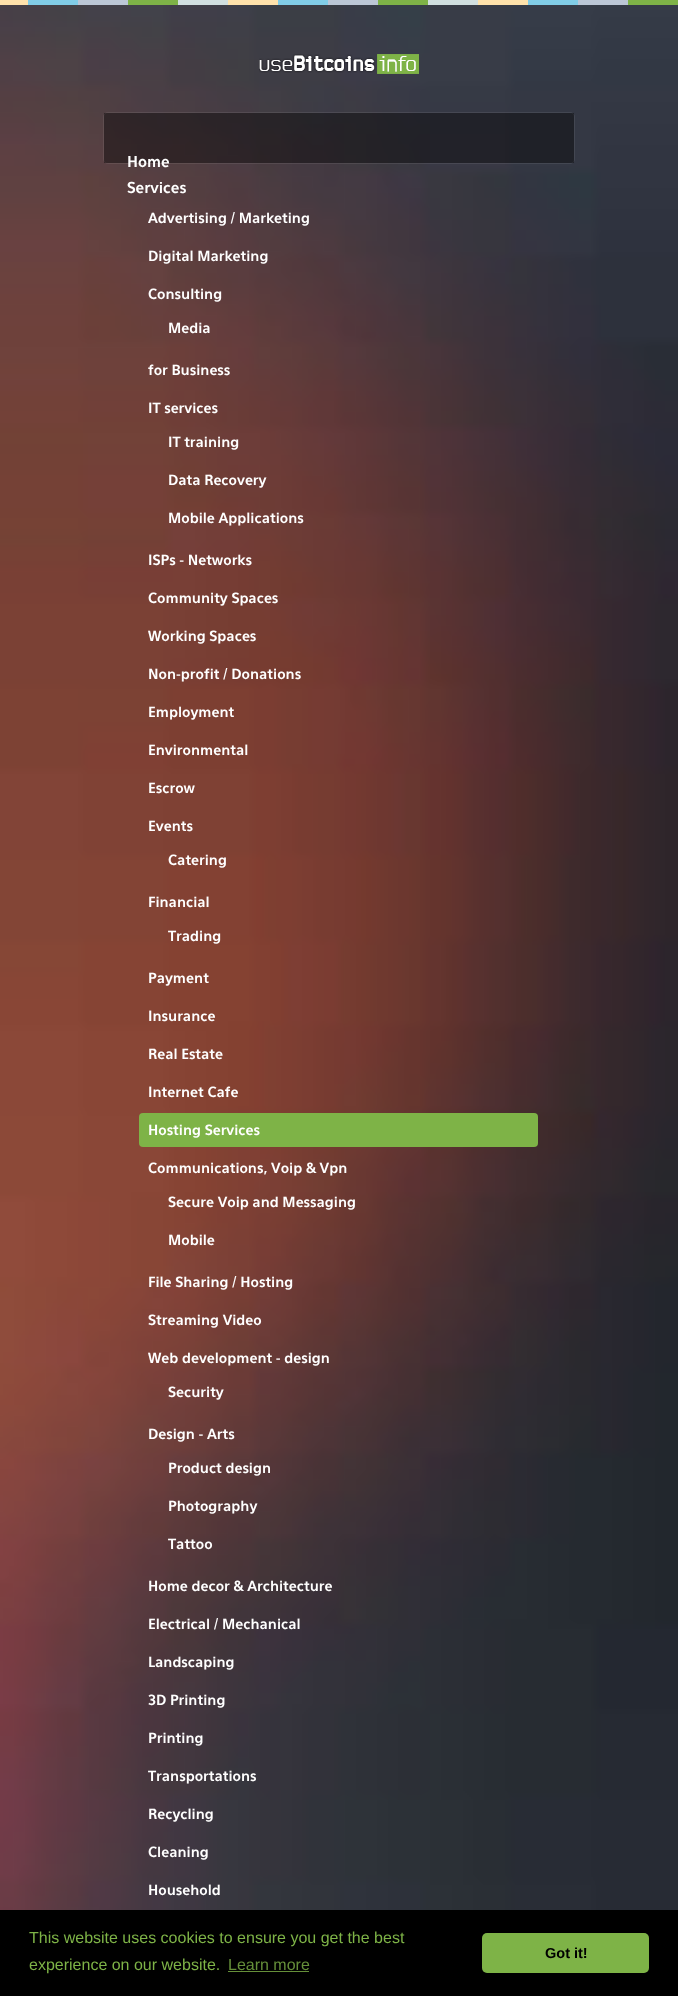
<?xml version="1.0" encoding="UTF-8"?>
<svg xmlns="http://www.w3.org/2000/svg" xmlns:xlink="http://www.w3.org/1999/xlink" width="678" height="1996">
  <rect width="100%" height="100%" fill="#ffffff" />
  <image x="0" y="5" width="678" height="1905" xlink:href="image1.png" />
  <rect x="628" width="50" height="5" fill="#7eb347" />
  <rect x="578" width="50" height="5" fill="#bcc7d6" />
  <rect x="528" width="50" height="5" fill="#81cde7" />
  <rect x="478" width="50" height="5" fill="#ffe2ab" />
  <rect x="428" width="50" height="5" fill="#d1dfe0" />
  <rect x="378" width="50" height="5" fill="#7eb347" />
  <rect x="328" width="50" height="5" fill="#bcc7d6" />
  <rect x="278" width="50" height="5" fill="#81cde7" />
  <rect x="228" width="50" height="5" fill="#ffe2ab" />
  <rect x="178" width="50" height="5" fill="#d1dfe0" />
  <rect x="128" width="50" height="5" fill="#7eb347" />
  <rect x="78" width="50" height="5" fill="#bcc7d6" />
  <rect x="28" width="50" height="5" fill="#81cde7" />
  <rect width="28" height="5" fill="#ffe2ab" />
  <image x="259" y="54" width="160" height="20" xlink:href="image2.png" />
  <rect x="103.5" y="112.5" width="471" height="51" rx="4.5" fill="none" stroke="#ffffff" stroke-opacity="0.08" />
  <rect x="104" y="113" width="470" height="50" fill="#000000" fill-opacity="0.4" />
  <rect x="139" y="1113" width="399" height="34" rx="4" fill="#7eb347" />
  <rect y="1910" width="678" height="86" fill="#000000" />
  <rect x="228" y="1971" width="81" height="1" fill="#658f39" />
  <rect x="482" y="1933" width="167" height="40" rx="5" fill="#7eb347" />
  <text x="127" y="167" style="font-family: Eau; font-size: 15px; font-weight: bold; fill: #ffffff">Home</text>
  <text x="127" y="193" style="font-family: Eau; font-size: 15px; font-weight: bold; fill: #ffffff">Services</text>
  <text x="148" y="223" style="font-family: Eau; font-size: 14px; font-weight: bold; fill: #ffffff">Advertising / Marketing</text>
  <text x="148" y="261" style="font-family: Eau; font-size: 14px; font-weight: bold; fill: #ffffff">Digital Marketing</text>
  <text x="148" y="299" style="font-family: Eau; font-size: 14px; font-weight: bold; fill: #ffffff">Consulting</text>
  <text x="168" y="333" style="font-family: Eau; font-size: 14px; font-weight: bold; fill: #ffffff">Media</text>
  <text x="148" y="375" style="font-family: Eau; font-size: 14px; font-weight: bold; fill: #ffffff">for Business</text>
  <text x="148" y="413" style="font-family: Eau; font-size: 14px; font-weight: bold; fill: #ffffff">IT services</text>
  <text x="168" y="447" style="font-family: Eau; font-size: 14px; font-weight: bold; fill: #ffffff">IT training</text>
  <text x="168" y="485" style="font-family: Eau; font-size: 14px; font-weight: bold; fill: #ffffff">Data Recovery</text>
  <text x="168" y="523" style="font-family: Eau; font-size: 14px; font-weight: bold; fill: #ffffff">Mobile Applications</text>
  <text x="148" y="565" style="font-family: Eau; font-size: 14px; font-weight: bold; fill: #ffffff">ISPs - Networks</text>
  <text x="148" y="603" style="font-family: Eau; font-size: 14px; font-weight: bold; fill: #ffffff">Community Spaces</text>
  <text x="148" y="641" style="font-family: Eau; font-size: 14px; font-weight: bold; fill: #ffffff">Working Spaces</text>
  <text x="148" y="679" style="font-family: Eau; font-size: 14px; font-weight: bold; fill: #ffffff">Non-profit / Donations</text>
  <text x="148" y="717" style="font-family: Eau; font-size: 14px; font-weight: bold; fill: #ffffff">Employment</text>
  <text x="148" y="755" style="font-family: Eau; font-size: 14px; font-weight: bold; fill: #ffffff">Environmental</text>
  <text x="148" y="793" style="font-family: Eau; font-size: 14px; font-weight: bold; fill: #ffffff">Escrow</text>
  <text x="148" y="831" style="font-family: Eau; font-size: 14px; font-weight: bold; fill: #ffffff">Events</text>
  <text x="168" y="865" style="font-family: Eau; font-size: 14px; font-weight: bold; fill: #ffffff">Catering</text>
  <text x="148" y="907" style="font-family: Eau; font-size: 14px; font-weight: bold; fill: #ffffff">Financial</text>
  <text x="168" y="941" style="font-family: Eau; font-size: 14px; font-weight: bold; fill: #ffffff">Trading</text>
  <text x="148" y="983" style="font-family: Eau; font-size: 14px; font-weight: bold; fill: #ffffff">Payment</text>
  <text x="148" y="1021" style="font-family: Eau; font-size: 14px; font-weight: bold; fill: #ffffff">Insurance</text>
  <text x="148" y="1059" style="font-family: Eau; font-size: 14px; font-weight: bold; fill: #ffffff">Real Estate</text>
  <text x="148" y="1097" style="font-family: Eau; font-size: 14px; font-weight: bold; fill: #ffffff">Internet Cafe</text>
  <text x="148" y="1135" style="font-family: Eau; font-size: 14px; font-weight: bold; fill: #ffffff">Hosting Services</text>
  <text x="148" y="1173" style="font-family: Eau; font-size: 14px; font-weight: bold; fill: #ffffff">Communications, Voip &amp; Vpn</text>
  <text x="168" y="1207" style="font-family: Eau; font-size: 14px; font-weight: bold; fill: #ffffff">Secure Voip and Messaging</text>
  <text x="168" y="1245" style="font-family: Eau; font-size: 14px; font-weight: bold; fill: #ffffff">Mobile</text>
  <text x="148" y="1287" style="font-family: Eau; font-size: 14px; font-weight: bold; fill: #ffffff">File Sharing / Hosting</text>
  <text x="148" y="1325" style="font-family: Eau; font-size: 14px; font-weight: bold; fill: #ffffff">Streaming Video</text>
  <text x="148" y="1363" style="font-family: Eau; font-size: 14px; font-weight: bold; fill: #ffffff">Web development - design</text>
  <text x="168" y="1397" style="font-family: Eau; font-size: 14px; font-weight: bold; fill: #ffffff">Security</text>
  <text x="148" y="1439" style="font-family: Eau; font-size: 14px; font-weight: bold; fill: #ffffff">Design - Arts</text>
  <text x="168" y="1473" style="font-family: Eau; font-size: 14px; font-weight: bold; fill: #ffffff">Product design</text>
  <text x="168" y="1511" style="font-family: Eau; font-size: 14px; font-weight: bold; fill: #ffffff">Photography</text>
  <text x="168" y="1549" style="font-family: Eau; font-size: 14px; font-weight: bold; fill: #ffffff">Tattoo</text>
  <text x="148" y="1591" style="font-family: Eau; font-size: 14px; font-weight: bold; fill: #ffffff">Home decor &amp; Architecture</text>
  <text x="148" y="1629" style="font-family: Eau; font-size: 14px; font-weight: bold; fill: #ffffff">Electrical / Mechanical</text>
  <text x="148" y="1667" style="font-family: Eau; font-size: 14px; font-weight: bold; fill: #ffffff">Landscaping</text>
  <text x="148" y="1705" style="font-family: Eau; font-size: 14px; font-weight: bold; fill: #ffffff">3D Printing</text>
  <text x="148" y="1743" style="font-family: Eau; font-size: 14px; font-weight: bold; fill: #ffffff">Printing</text>
  <text x="148" y="1781" style="font-family: Eau; font-size: 14px; font-weight: bold; fill: #ffffff">Transportations</text>
  <text x="148" y="1819" style="font-family: Eau; font-size: 14px; font-weight: bold; fill: #ffffff">Recycling</text>
  <text x="148" y="1857" style="font-family: Eau; font-size: 14px; font-weight: bold; fill: #ffffff">Cleaning</text>
  <text x="148" y="1895" style="font-family: Eau; font-size: 14px; font-weight: bold; fill: #ffffff">Household</text>
  <text x="29" y="1943" style="font-family: Liberation Sans; font-size: 16px; fill: #7eb347">This website uses cookies to ensure you get the best</text>
  <text x="29" y="1970" style="font-family: Liberation Sans; font-size: 16px; fill: #7eb347">experience on our website.</text>
  <text x="228" y="1970" style="font-family: Liberation Sans; font-size: 16px; fill: #658f39">Learn more</text>
  <text x="545" y="1958" style="font-family: Liberation Sans; font-size: 14.5px; font-weight: bold; fill: #000000">Got it!</text>
</svg>
